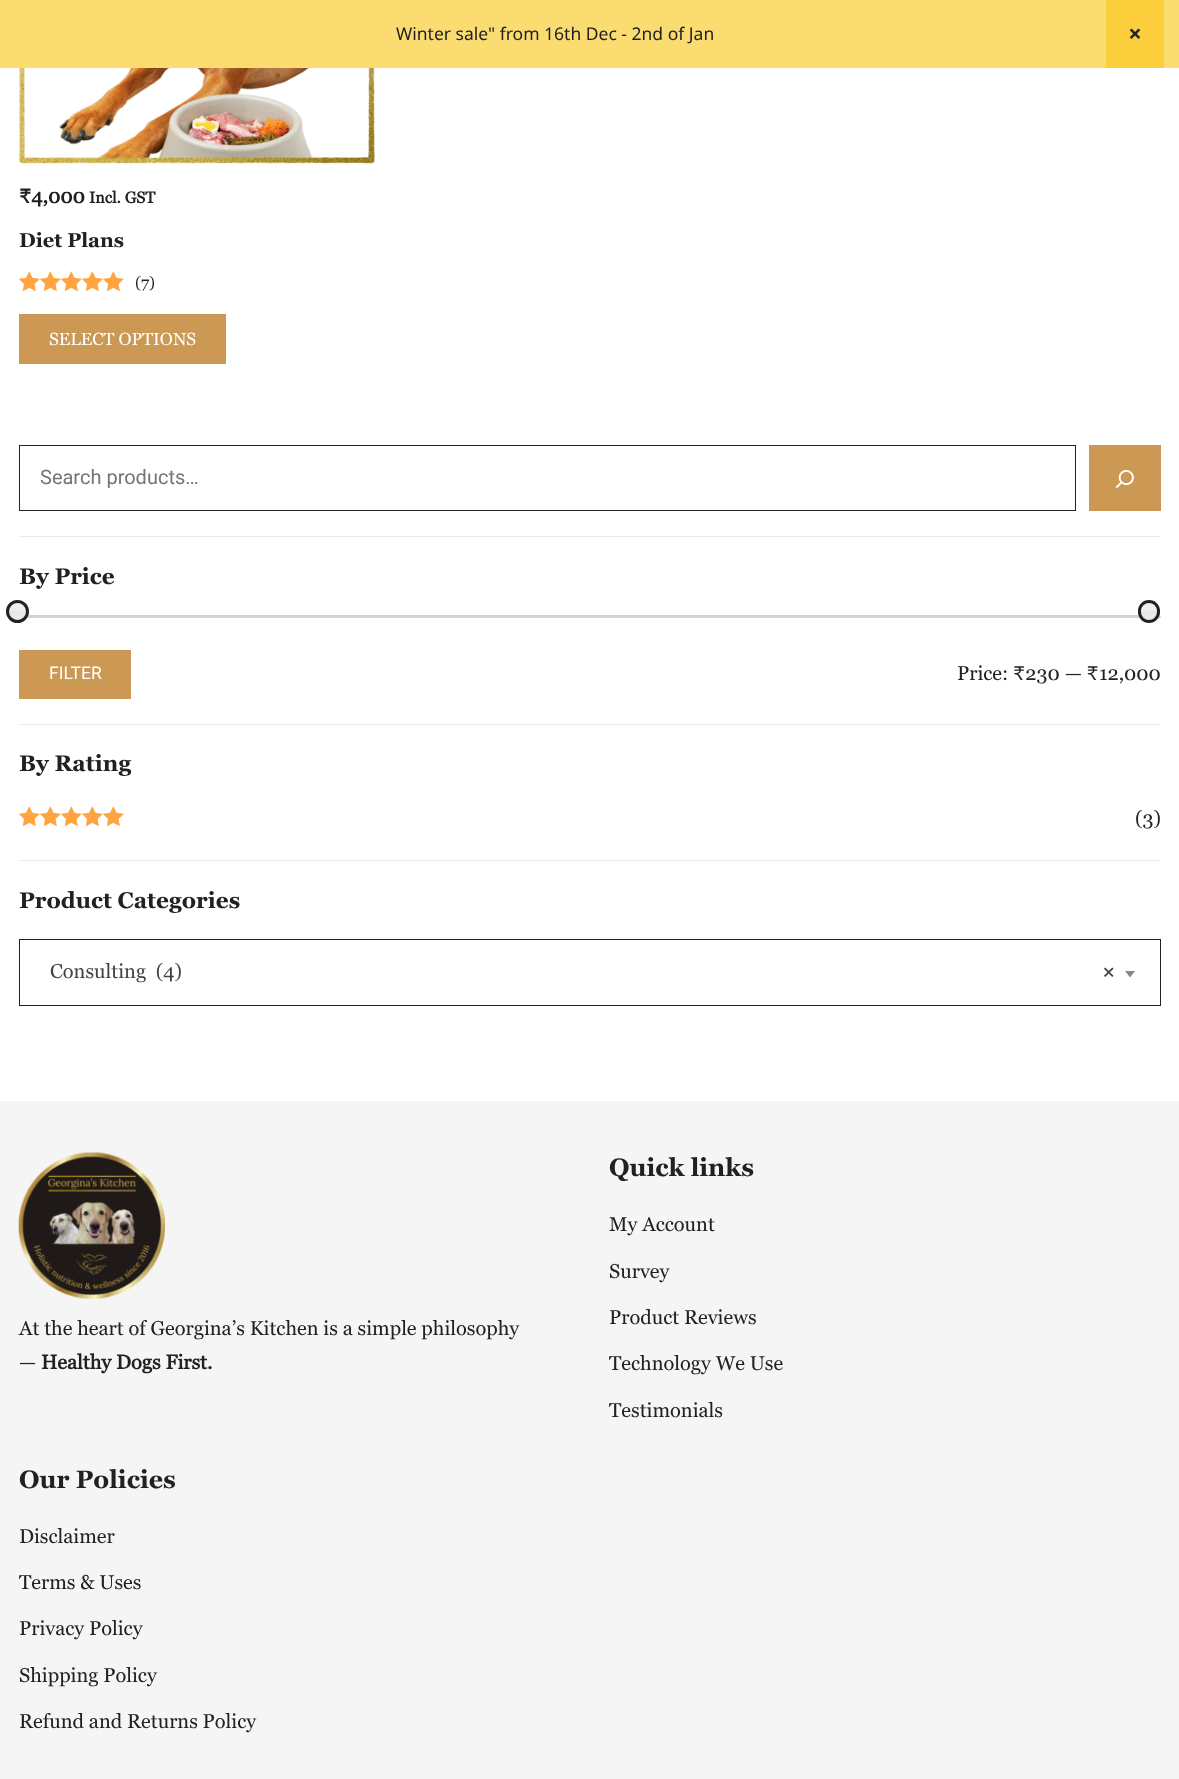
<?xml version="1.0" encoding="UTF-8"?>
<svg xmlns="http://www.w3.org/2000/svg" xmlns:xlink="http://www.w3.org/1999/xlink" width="1179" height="1779">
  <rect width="100%" height="100%" fill="#ffffff" />
  <rect width="1179" height="68" fill="#fbdc70" />
  <rect x="1106" width="58" height="68" fill="#facf3b" />
  <image x="1129" y="28" width="12" height="11" xlink:href="image1.png" />
  <image x="18" y="68" width="357" height="96" xlink:href="image2.png" />
  <image x="19" y="271" width="105" height="20" xlink:href="image3.png" />
  <image x="19" y="271" width="105" height="21" xlink:href="image4.png" />
  <rect x="19" y="314" width="207" height="50" fill="#cc9955" />
  <rect x="19" y="536" width="1142" height="1" fill="#e9e9e9" />
  <rect x="19.5" y="445.5" width="1056" height="65" fill="none" stroke="#212121" />
  <rect x="1089" y="445" width="72" height="66" fill="#cc9955" />
  <image x="1115" y="470" width="19" height="19" xlink:href="image5.png" />
  <rect x="19" y="724" width="1142" height="1" fill="#e9e9e9" />
  <rect x="19" y="615" width="1142" height="3" rx="1.5" fill="#d3d3d3" />
  <image x="6" y="600" width="23" height="23" xlink:href="image6.png" />
  <circle cx="17.5" cy="611.5" r="10" fill="none" stroke="#212121" stroke-width="3" />
  <image x="1137" y="600" width="23" height="23" xlink:href="image7.png" />
  <rect x="1139.5" y="601.5" width="19" height="20" rx="9.5" fill="none" stroke="#212121" stroke-width="3" />
  <rect x="19" y="650" width="112" height="49" fill="#cc9955" />
  <rect x="19" y="860" width="1142" height="1" fill="#e9e9e9" />
  <image x="19" y="806" width="105" height="20" xlink:href="image3.png" />
  <image x="19" y="806" width="105" height="21" xlink:href="image4.png" />
  <rect x="19.5" y="939.5" width="1141" height="66" fill="none" stroke="#212121" />
  <path d="M 1125 971 h 10 l -5 6.5 z" fill="#888888" />
  <rect y="1101" width="1179" height="678" fill="#f5f5f5" />
  <image x="18" y="1152" width="147" height="147" xlink:href="image8.png" />
  <text x="396" y="40" style="font-family: Noto Sans; font-size: 17.5px; fill: #212121">Winter sale" from 16th Dec - 2nd of Jan</text>
  <text x="19" y="203" style="font-family: 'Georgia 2'; font-size: 20px; font-weight: bold; fill: #212121">₹4,000</text>
  <text x="89" y="203" style="font-family: 'Georgia 2'; font-size: 16px; font-weight: bold; fill: #212121">Incl. GST</text>
  <text x="19" y="247" style="font-family: Georgia; font-size: 20px; font-weight: bold; fill: #212121">Diet Plans</text>
  <text x="135" y="288" style="font-family: Georgia; font-size: 16px; fill: #212121">(7)</text>
  <text x="49" y="345" style="font-family: Georgia; font-size: 17.5px; fill: #ffffff">SELECT OPTIONS</text>
  <text x="40" y="484" style="font-family: Roboto; font-size: 20px; fill: #757575">Search products…</text>
  <text x="19" y="584" style="font-family: Georgia; font-size: 22.5px; font-weight: bold; fill: #212121">By Price</text>
  <text x="49" y="679" style="font-family: Roboto; font-size: 17.5px; fill: #ffffff">FILTER</text>
  <text x="957" y="680" style="font-family: Georgia; font-size: 20px; fill: #212121">Price: ₹230 — ₹12,000</text>
  <text x="19" y="771" style="font-family: Georgia; font-size: 22.5px; font-weight: bold; fill: #212121">By Rating</text>
  <text x="1135" y="825" style="font-family: Georgia; font-size: 20px; fill: #212121">(3)</text>
  <text x="19" y="908" style="font-family: Georgia; font-size: 22.5px; font-weight: bold; fill: #212121">Product Categories</text>
  <text x="50" y="978" style="font-family: Georgia; font-size: 20px; fill: #444444" xml:space="preserve">Consulting  (4)</text>
  <text x="1102" y="978" style="font-family: 'Georgia 2'; font-size: 20px; font-weight: bold; fill: #444444">×</text>
  <text x="19" y="1335" style="font-family: Georgia; font-size: 20px; fill: #212121">At the heart of Georgina’s Kitchen is a simple philosophy</text>
  <text x="19" y="1369" style="font-family: Georgia; font-size: 20px; fill: #212121">—</text>
  <text x="41" y="1369" style="font-family: 'Georgia 2'; font-size: 20px; font-weight: bold; fill: #212121">Healthy Dogs First.</text>
  <text x="609" y="1176" style="font-family: Georgia; font-size: 25px; font-weight: bold; fill: #212121">Quick links</text>
  <text x="609" y="1231" style="font-family: Georgia; font-size: 20px; fill: #212121">My Account</text>
  <text x="609" y="1278" style="font-family: Georgia; font-size: 20px; fill: #212121">Survey</text>
  <text x="609" y="1324" style="font-family: Georgia; font-size: 20px; fill: #212121">Product Reviews</text>
  <text x="609" y="1370" style="font-family: Georgia; font-size: 20px; fill: #212121">Technology We Use</text>
  <text x="609" y="1417" style="font-family: Georgia; font-size: 20px; fill: #212121">Testimonials</text>
  <text x="19" y="1488" style="font-family: Georgia; font-size: 25px; font-weight: bold; fill: #212121">Our Policies</text>
  <text x="19" y="1543" style="font-family: Georgia; font-size: 20px; fill: #212121">Disclaimer</text>
  <text x="19" y="1589" style="font-family: Georgia; font-size: 20px; fill: #212121">Terms &amp; Uses</text>
  <text x="19" y="1635" style="font-family: Georgia; font-size: 20px; fill: #212121">Privacy Policy</text>
  <text x="19" y="1682" style="font-family: Georgia; font-size: 20px; fill: #212121">Shipping Policy</text>
  <text x="19" y="1728" style="font-family: Georgia; font-size: 20px; fill: #212121">Refund and Returns Policy</text>
</svg>
